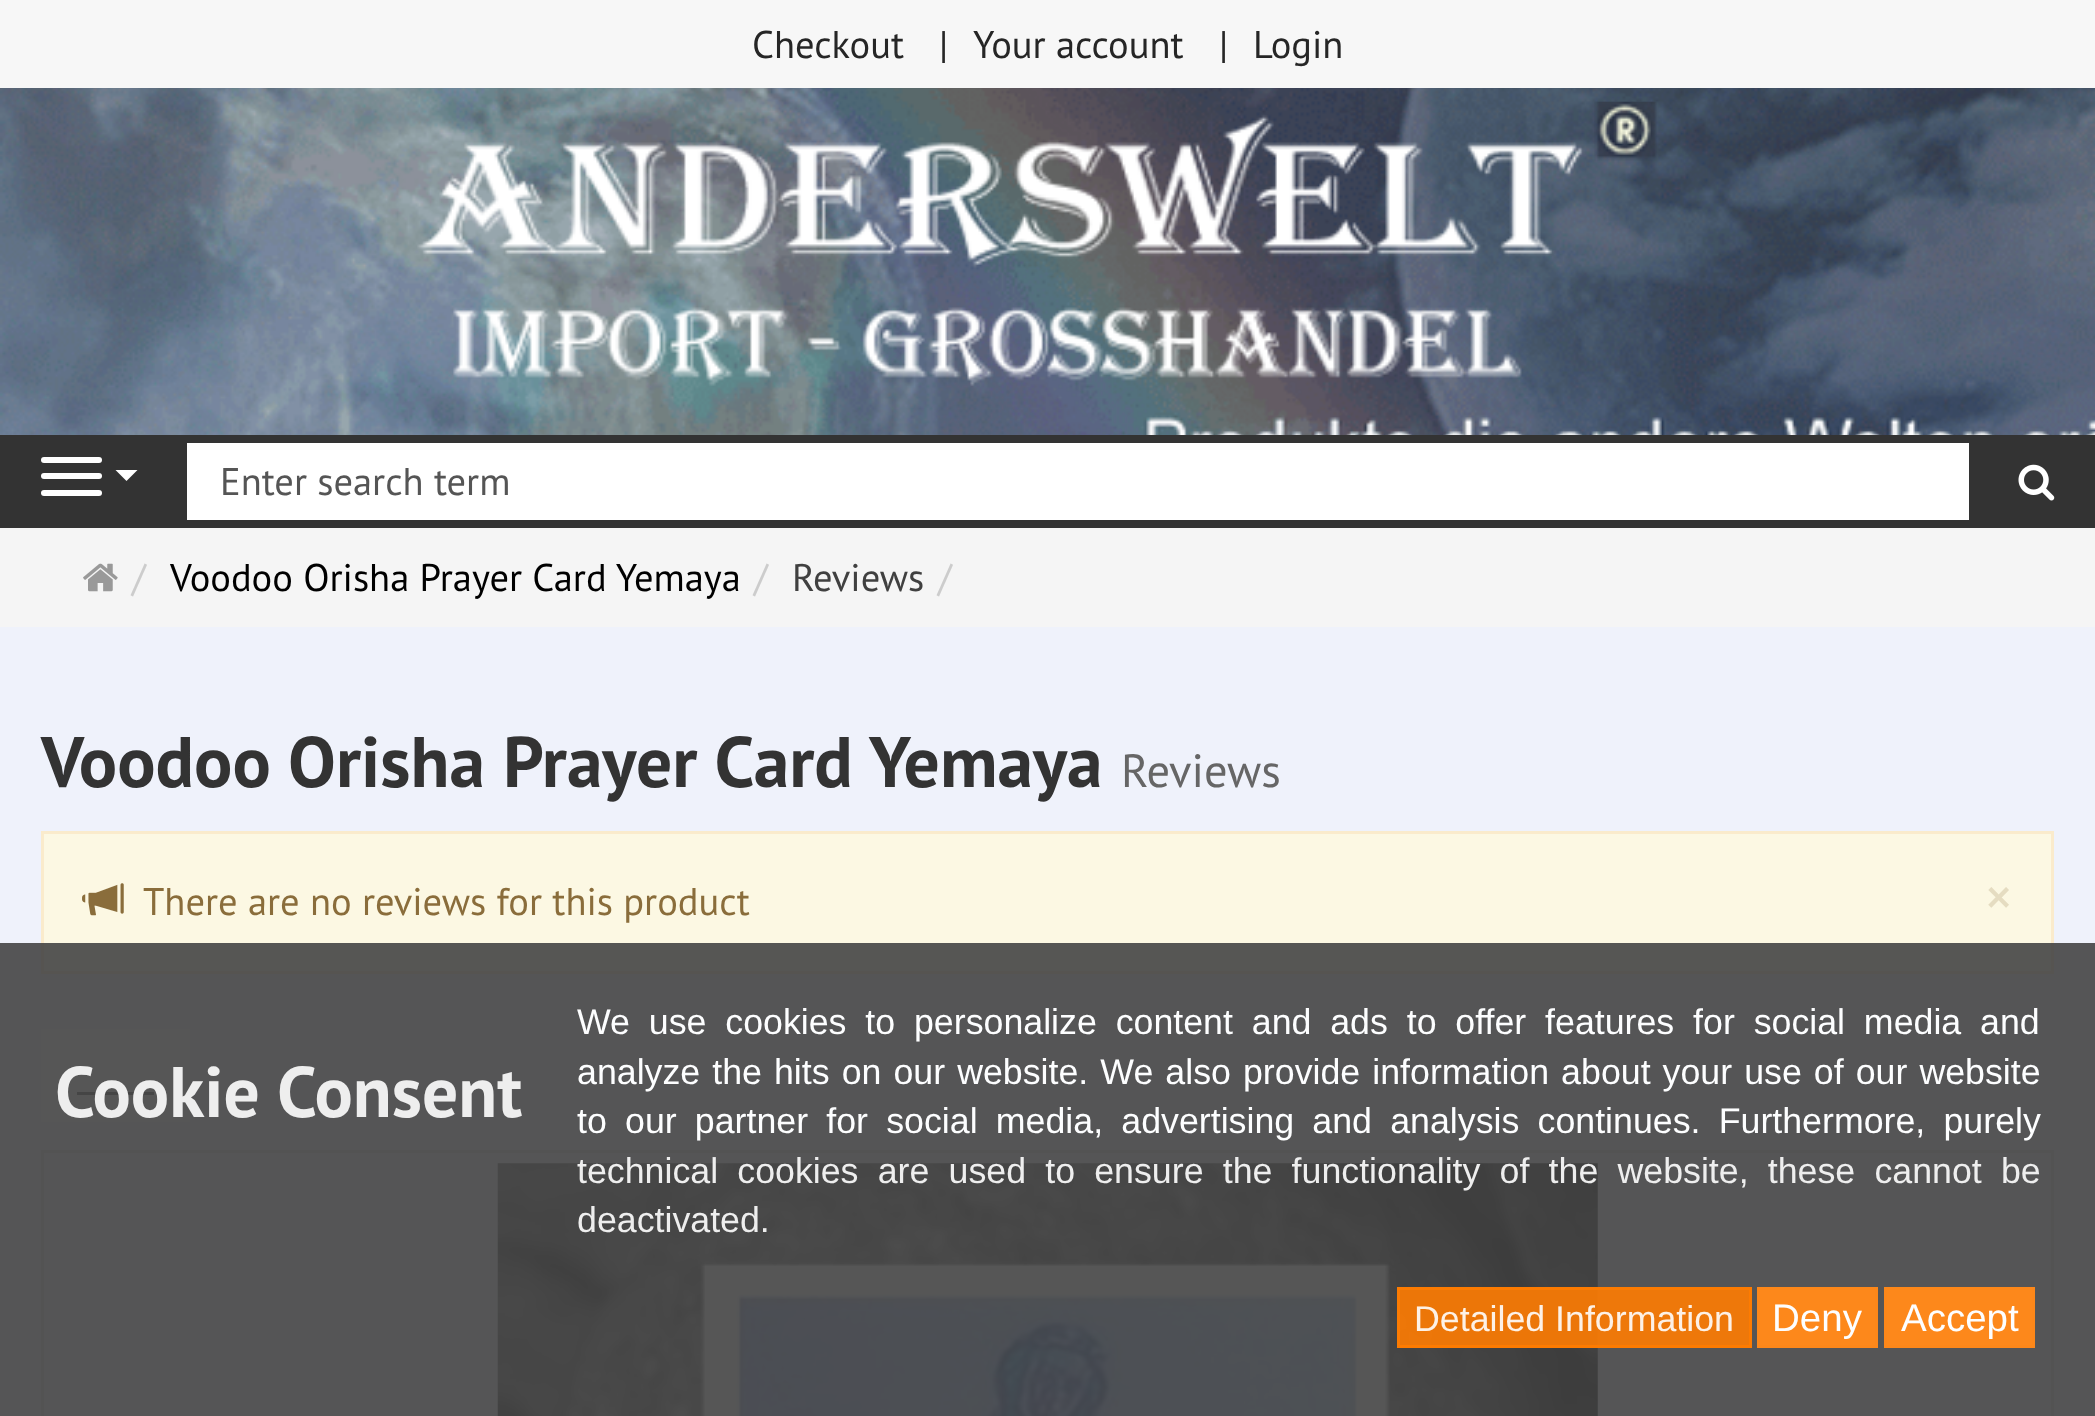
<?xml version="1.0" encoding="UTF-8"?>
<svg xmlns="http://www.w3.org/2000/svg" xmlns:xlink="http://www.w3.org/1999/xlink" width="2095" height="1416">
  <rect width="100%" height="100%" fill="#eff2fb" />
  <image x="0" y="88" width="2095" height="347" xlink:href="image1.png" />
  <rect width="2095" height="88" fill="#f7f7f7" />
  <image x="417" y="101" width="1240" height="285" xlink:href="image2.png" />
  <rect y="435" width="2095" height="93" fill="#333333" />
  <rect x="41" y="457" width="61" height="6" rx="3" fill="#ffffff" />
  <rect x="41" y="473" width="61" height="6" rx="3" fill="#ffffff" />
  <rect x="41" y="490" width="61" height="6" rx="3" fill="#ffffff" />
  <path d="M 115.5 470 h 22 l -11 11 z" fill="#ffffff" />
  <rect x="187" y="443" width="1782" height="77" fill="#ffffff" />
  <image x="2018" y="464" width="37" height="37" xlink:href="image3.png" />
  <rect y="528" width="2095" height="99" fill="#f5f5f5" />
  <image x="83" y="563" width="35" height="29" xlink:href="image4.png" />
  <rect x="42.5" y="832.5" width="2010" height="140" fill="#fcf8e3" stroke="#faebcc" stroke-width="3" />
  <image x="82" y="883" width="42" height="33" xlink:href="image5.png" />
  <rect x="41" y="1029" width="149" height="93" fill="#f7f7f7" />
  <rect x="77" y="1092" width="77" height="3" fill="#555555" />
  <rect x="42.5" y="1151.5" width="2010" height="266" fill="none" stroke="#dddddd" stroke-width="3" />
  <image x="497" y="1163" width="1101" height="253" xlink:href="image6.png" />
  <rect y="943" width="2095" height="473" fill="#444444" fill-opacity="0.9" />
  <rect x="1398.5" y="1288.5" width="352" height="58" fill="#ff7c02" fill-opacity="0.9" stroke="#fd7b01" stroke-width="3" />
  <rect x="1758.5" y="1288.5" width="118" height="58" fill="#fd881b" stroke="#fd8719" stroke-width="3" />
  <rect x="1885.5" y="1288.5" width="148" height="58" fill="#fd881b" stroke="#fd8719" stroke-width="3" />
  <text x="752" y="58" style="font-family: PT Sans; font-size: 38.5px; fill: #262626">Checkout</text>
  <text x="939" y="58" style="font-family: PT Sans; font-size: 38.5px; fill: #262626">|</text>
  <text x="973" y="58" style="font-family: PT Sans; font-size: 38.5px; fill: #262626">Your account</text>
  <text x="1219" y="58" style="font-family: PT Sans; font-size: 38.5px; fill: #262626">|</text>
  <text x="1253" y="58" style="font-family: PT Sans; font-size: 38.5px; fill: #262626">Login</text>
  <text x="220" y="495" style="font-family: PT Sans; font-size: 38.5px; fill: #555555">Enter search term</text>
  <text x="132" y="591" style="font-family: PT Sans; font-size: 38.5px; fill: #cccccc">/</text>
  <text x="170" y="591" style="font-family: PT Sans; font-size: 38.5px; fill: #000000">Voodoo Orisha Prayer Card Yemaya</text>
  <text x="754" y="591" style="font-family: PT Sans; font-size: 38.5px; fill: #cccccc">/</text>
  <text x="792" y="591" style="font-family: PT Sans; font-size: 38.5px; fill: #404040">Reviews</text>
  <text x="938" y="591" style="font-family: PT Sans; font-size: 38.5px; fill: #cccccc">/</text>
  <text x="41" y="787" style="font-family: PT Sans; font-size: 71.5px; font-weight: bold; fill: #333333">Voodoo Orisha Prayer Card Yemaya</text>
  <text x="1121" y="787" style="font-family: PT Sans; font-size: 46.5px; fill: #666666">Reviews</text>
  <text x="143" y="915" style="font-family: PT Sans; font-size: 38.5px; fill: #8a6d3b">There are no reviews for this product</text>
  <text x="1984" y="917" style="font-family: PT Sans; font-size: 58px; fill: #e5dcc1">×</text>
  <text x="55" y="1117" style="font-family: PT Sans; font-size: 71.5px; font-weight: bold; fill: #eeeeee">Cookie Consent</text>
  <text x="577" y="1034" word-spacing="8.9" style="font-family: Liberation Sans; font-size: 35.75px; fill: #fdfeff">We use cookies to personalize content and ads to offer features for social media and</text>
  <text x="577" y="1084" word-spacing="2.1" style="font-family: Liberation Sans; font-size: 35.75px; fill: #fdfeff">analyze the hits on our website. We also provide information about your use of our website</text>
  <text x="577" y="1133" word-spacing="8.25" style="font-family: Liberation Sans; font-size: 35.75px; fill: #fdfeff">to our partner for social media, advertising and analysis continues. Furthermore, purely</text>
  <text x="577" y="1183" word-spacing="9.25" style="font-family: Liberation Sans; font-size: 35.75px; fill: #eeeeee">technical cookies are used to ensure the functionality of the website, these cannot be</text>
  <text x="577" y="1232" style="font-family: Liberation Sans; font-size: 35.75px; fill: #eeeeee">deactivated.</text>
  <text x="1414" y="1331" style="font-family: Liberation Sans; font-size: 35.75px; fill: #fdf1e6">Detailed Information</text>
  <text x="1772" y="1331" style="font-family: Liberation Sans; font-size: 38.5px; fill: #fdfeff">Deny</text>
  <text x="1901" y="1331" style="font-family: Liberation Sans; font-size: 38.5px; fill: #fdfeff">Accept</text>
</svg>
